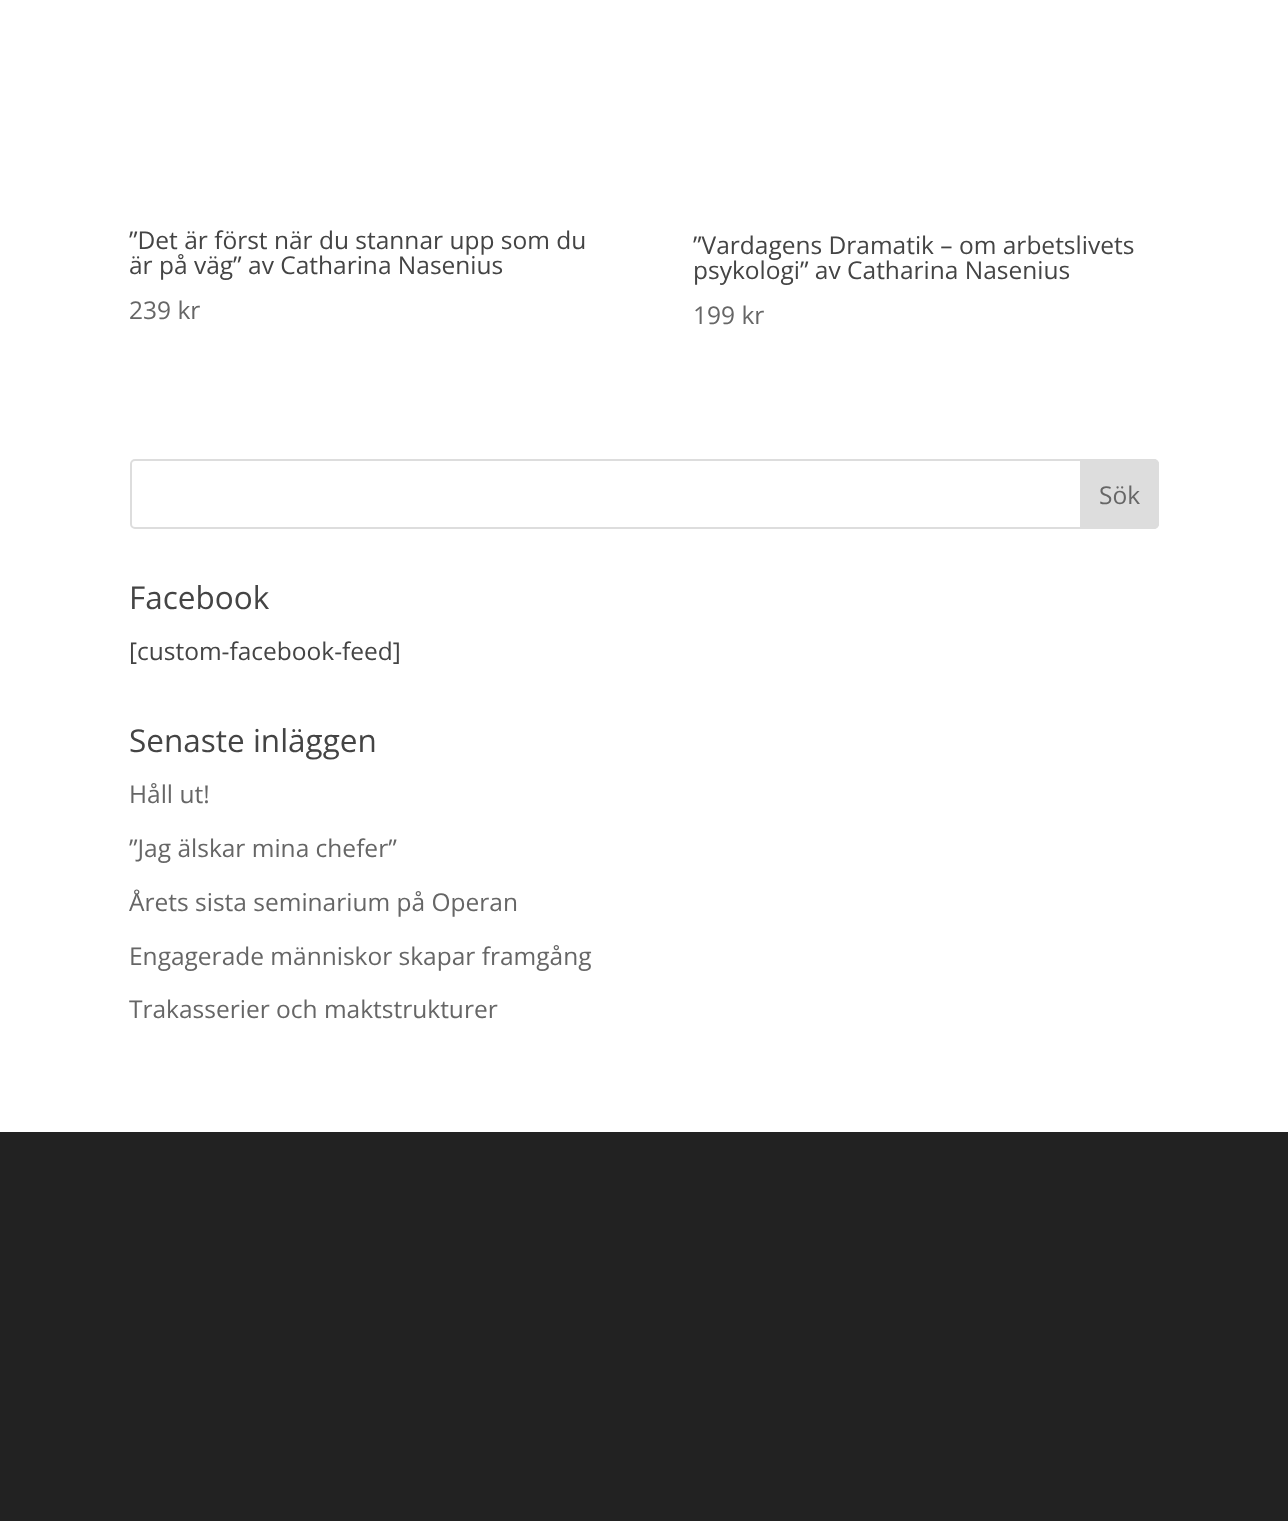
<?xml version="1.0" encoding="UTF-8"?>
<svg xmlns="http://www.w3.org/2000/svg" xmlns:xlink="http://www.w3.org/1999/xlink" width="1288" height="1521">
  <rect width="100%" height="100%" fill="#ffffff" />
  <rect x="131" y="460" width="1027" height="68" rx="4" fill="none" stroke="#dddddd" stroke-width="2" />
  <path d="M 1081 460 h 73 c 2 0 4 2 4 4 v 60 c 0 2 -2 4 -4 4 h -73 z" fill="#dddddd" stroke="#dddddd" stroke-width="2" />
  <rect y="1132" width="1288" height="389" fill="#222222" />
  <text x="129" y="249" style="font-family: Open Sans; font-size: 24.5px; fill: #444444">”Det är först när du stannar upp som du</text>
  <text x="129" y="274" style="font-family: Open Sans; font-size: 24.5px; fill: #444444">är på väg” av Catharina Nasenius</text>
  <text x="129" y="319" style="font-family: Open Sans; font-size: 24.5px; fill: #666666">239 kr</text>
  <text x="693" y="254" style="font-family: Open Sans; font-size: 24.5px; fill: #444444">”Vardagens Dramatik – om arbetslivets</text>
  <text x="693" y="279" style="font-family: Open Sans; font-size: 24.5px; fill: #444444">psykologi” av Catharina Nasenius</text>
  <text x="693" y="324" style="font-family: Open Sans; font-size: 24.5px; fill: #666666">199 kr</text>
  <text x="1099" y="504" style="font-family: Open Sans; font-size: 24.5px; fill: #666666">Sök</text>
  <text x="129" y="609" style="font-family: Open Sans; font-size: 31.5px; fill: #444444">Facebook</text>
  <text x="129" y="660" style="font-family: Open Sans; font-size: 24.5px; fill: #444444">[custom-facebook-feed]</text>
  <text x="129" y="752" style="font-family: Open Sans; font-size: 31.5px; fill: #444444">Senaste inläggen</text>
  <text x="129" y="803" style="font-family: Open Sans; font-size: 24.5px; fill: #666666">Håll ut!</text>
  <text x="129" y="857" style="font-family: Open Sans; font-size: 24.5px; fill: #666666">”Jag älskar mina chefer”</text>
  <text x="129" y="911" style="font-family: Open Sans; font-size: 24.5px; fill: #666666">Årets sista seminarium på Operan</text>
  <text x="129" y="965" style="font-family: Open Sans; font-size: 24.5px; fill: #666666">Engagerade människor skapar framgång</text>
  <text x="129" y="1018" style="font-family: Open Sans; font-size: 24.5px; fill: #666666">Trakasserier och maktstrukturer</text>
</svg>
